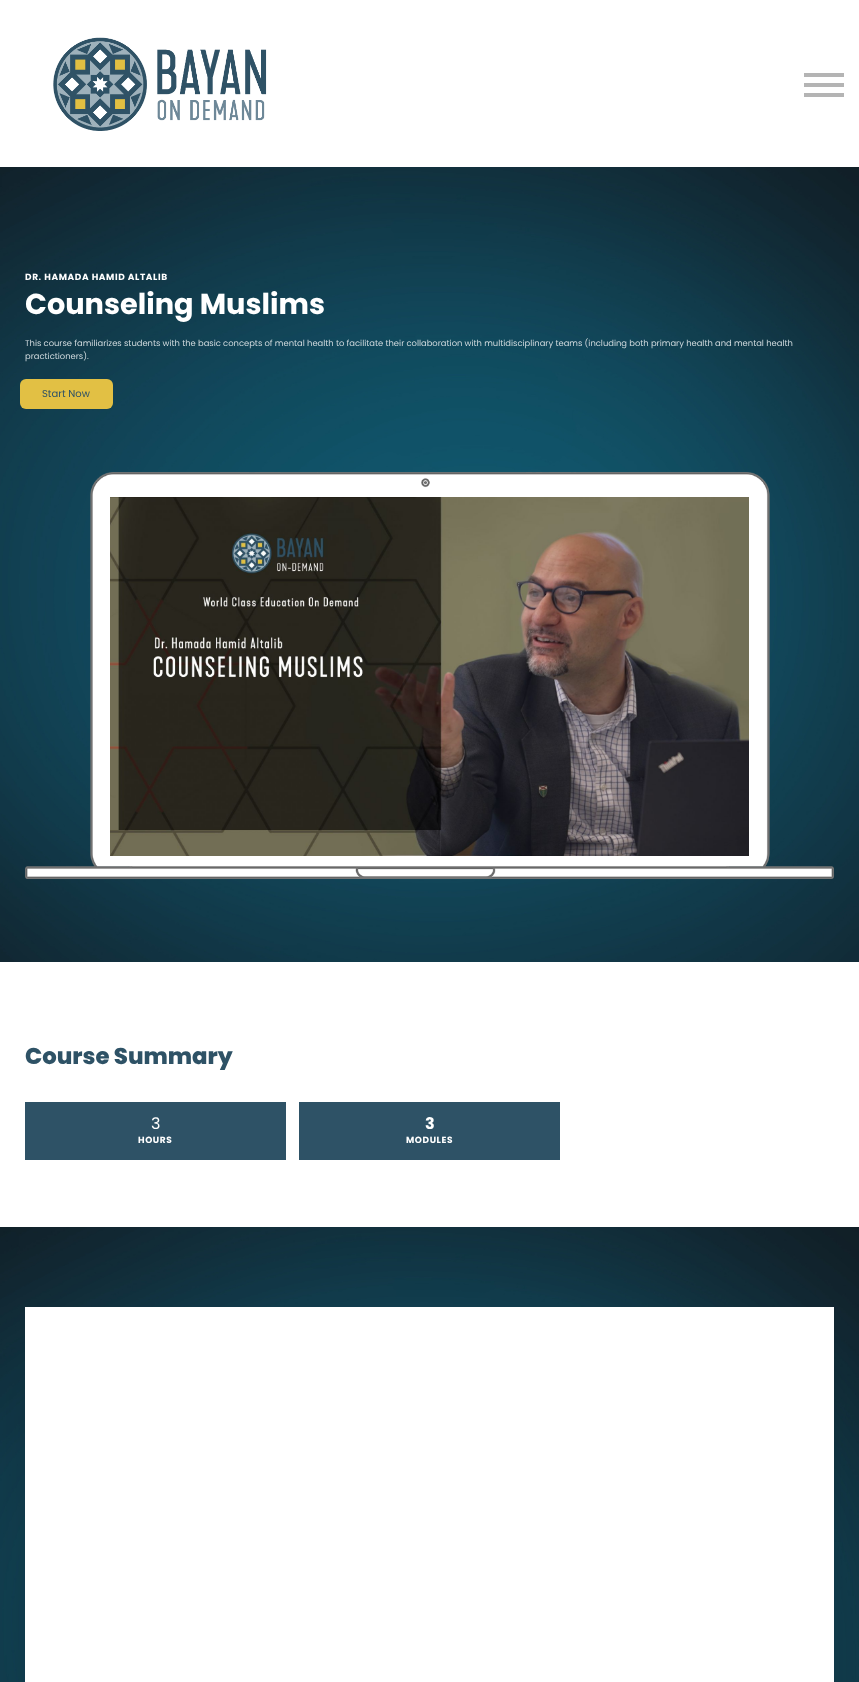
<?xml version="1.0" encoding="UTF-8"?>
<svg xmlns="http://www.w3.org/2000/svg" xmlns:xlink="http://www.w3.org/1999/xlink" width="859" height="1682">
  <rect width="100%" height="100%" fill="#ffffff" />
  <image x="53" y="37" width="214" height="94" xlink:href="image1.png" />
  <rect x="804" y="93" width="40" height="4" fill="#b4b4b4" />
  <rect x="804" y="73" width="40" height="4" fill="#b4b4b4" />
  <rect x="804" y="83" width="40" height="4" fill="#b4b4b4" />
  <image x="0" y="167" width="859" height="795" xlink:href="image2.png" />
  <rect x="20" y="379" width="93" height="30" rx="6" fill="#e2c044" />
  <image x="25" y="472" width="809" height="407" xlink:href="image3.png" />
  <image x="110" y="497" width="639" height="359" xlink:href="image4.png" />
  <rect x="25" y="1102" width="261" height="58" fill="#2e5266" />
  <rect x="299" y="1102" width="261" height="58" fill="#2e5266" />
  <image x="0" y="1227" width="859" height="455" xlink:href="image5.png" />
  <rect x="35" y="1377" width="789" height="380" fill="#000000" fill-opacity="0.15" filter="blur(25px)" />
  <rect x="26" y="1308" width="807" height="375" fill="none" stroke="#ffffff" stroke-width="2" />
  <rect x="27" y="1309" width="805" height="373" fill="#ffffff" />
  <text x="25" y="280" style="font-family: Poppins; font-size: 9px; font-weight: bold; letter-spacing: 0.6px; fill: #ffffff">DR. HAMADA HAMID ALTALIB</text>
  <text x="25" y="314" style="font-family: Poppins; font-size: 28.75px; font-weight: bold; fill: #ffffff">Counseling Muslims</text>
  <text x="25" y="346" style="font-family: Poppins; font-size: 8.4px; fill: #cfd9dd">This course familiarizes students with the basic concepts of mental health to facilitate their collaboration with multidisciplinary teams (including both primary health and mental health</text>
  <text x="25" y="359" style="font-family: Poppins; font-size: 8.4px; fill: #cfd9dd">practictioners).</text>
  <text x="42" y="397" style="font-family: Poppins; font-size: 10px; fill: #2e5266">Start Now</text>
  <text x="25" y="1064" style="font-family: Poppins; font-size: 22.75px; font-weight: 800; fill: #2e5266">Course Summary</text>
  <text x="151" y="1129" style="font-family: Poppins; font-size: 16px; fill: #ffffff">3</text>
  <text x="138" y="1143" style="font-family: Poppins; font-size: 9px; font-weight: bold; letter-spacing: 0.6px; fill: #ffffff">HOURS</text>
  <text x="425" y="1129" style="font-family: Poppins; font-size: 16px; font-weight: bold; fill: #ffffff">3</text>
  <text x="406" y="1143" style="font-family: Poppins; font-size: 9px; font-weight: bold; letter-spacing: 0.6px; fill: #ffffff">MODULES</text>
</svg>
